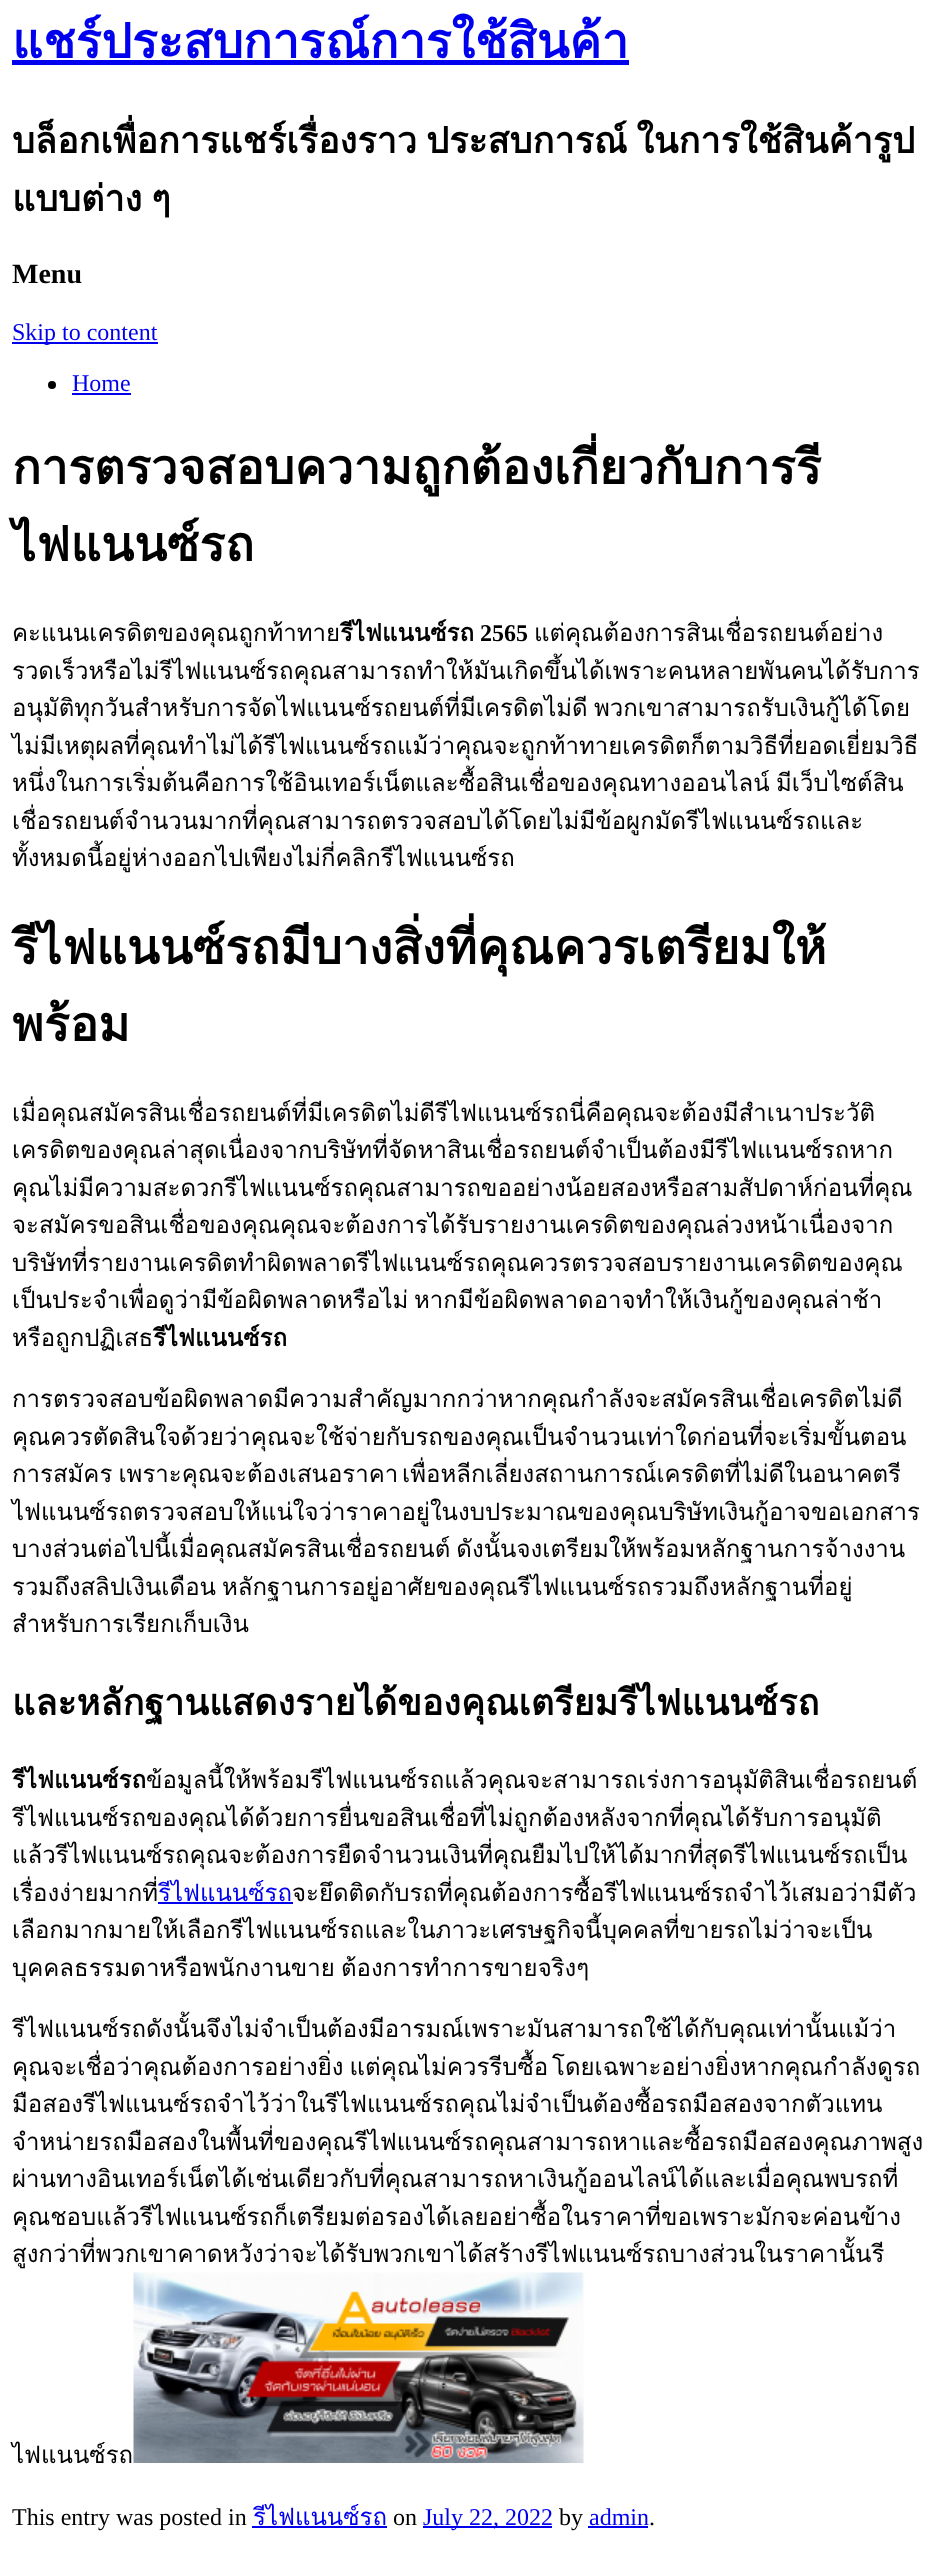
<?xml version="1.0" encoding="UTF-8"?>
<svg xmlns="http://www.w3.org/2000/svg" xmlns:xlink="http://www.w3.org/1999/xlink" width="935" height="2549">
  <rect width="100%" height="100%" fill="#ffffff" />
  <rect x="12" y="60" width="617" height="5" fill="#0000ee" />
  <rect x="12" y="342" width="146" height="2" fill="#0000ee" />
  <circle cx="52" cy="385" r="4" fill="#000000" />
  <rect x="72" y="393" width="59" height="2" fill="#0000ee" />
  <rect x="158" y="1902" width="135" height="2" fill="#0000ee" />
  <image x="133" y="2272" width="451" height="191" xlink:href="image1.png" />
  <rect x="252" y="2526" width="135" height="2" fill="#0000ee" />
  <rect x="423" y="2526" width="129" height="2" fill="#0000ee" />
  <rect x="588" y="2526" width="60" height="2" fill="#0000ee" />
  <text x="12" y="58" style="font-family: Loma; font-size: 48px; font-weight: bold; fill: #0000ee">แชร์ประสบการณ์การใช้สินค้า</text>
  <text x="12" y="153" word-spacing="-3" style="font-family: Loma; font-size: 36px; font-weight: bold; fill: #000000">บล็อกเพื่อการแชร์เรื่องราว ประสบการณ์ ในการใช้สินค้ารูป</text>
  <text x="12" y="211" word-spacing="-3" style="font-family: Loma; font-size: 36px; font-weight: bold; fill: #000000">แบบต่าง ๆ</text>
  <text x="12" y="283" style="font-family: Liberation Serif; font-size: 28px; font-weight: bold; fill: #000000">Menu</text>
  <text x="12" y="340" style="font-family: Liberation Serif; font-size: 24px; fill: #0000ee">Skip to content</text>
  <text x="72" y="391" style="font-family: Liberation Serif; font-size: 24px; fill: #0000ee">Home</text>
  <text x="12" y="484" style="font-family: Loma; font-size: 48px; font-weight: bold; fill: #000000">การตรวจสอบความถูกต้องเกี่ยวกับการรี</text>
  <text x="12" y="561" style="font-family: Loma; font-size: 48px; font-weight: bold; fill: #000000">ไฟแนนซ์รถ</text>
  <text x="12" y="641" style="font-family: Loma; font-size: 24px; fill: #000000">คะแนนเครดิตของคุณถูกท้าทาย</text>
  <text x="340" y="641" style="font-family: Loma; font-size: 24px; font-weight: bold; fill: #000000">รีไฟแนนซ์รถ</text>
  <text x="480" y="641" style="font-family: Liberation Serif; font-size: 24px; font-weight: bold; fill: #000000">2565</text>
  <text x="534" y="641" style="font-family: Loma; font-size: 24px; fill: #000000">แต่คุณต้องการสินเชื่อรถยนต์อย่าง</text>
  <text x="12" y="679" style="font-family: Loma; font-size: 24px; fill: #000000">รวดเร็วหรือไม่รีไฟแนนซ์รถคุณสามารถทำให้มันเกิดขึ้นได้เพราะคนหลายพันคนได้รับการ</text>
  <text x="12" y="716" style="font-family: Loma; font-size: 24px; fill: #000000">อนุมัติทุกวันสำหรับการจัดไฟแนนซ์รถยนต์ที่มีเครดิตไม่ดี</text>
  <text x="594" y="716" style="font-family: Loma; font-size: 24px; fill: #000000">พวกเขาสามารถรับเงินกู้ได้โดย</text>
  <text x="12" y="754" style="font-family: Loma; font-size: 24px; fill: #000000">ไม่มีเหตุผลที่คุณทำไม่ได้รีไฟแนนซ์รถแม้ว่าคุณจะถูกท้าทายเครดิตก็ตามวิธีที่ยอดเยี่ยมวิธี</text>
  <text x="12" y="791" style="font-family: Loma; font-size: 24px; fill: #000000">หนึ่งในการเริ่มต้นคือการใช้อินเทอร์เน็ตและซื้อสินเชื่อของคุณทางออนไลน์</text>
  <text x="776" y="791" style="font-family: Loma; font-size: 24px; fill: #000000">มีเว็บไซต์สิน</text>
  <text x="12" y="829" style="font-family: Loma; font-size: 24px; fill: #000000">เชื่อรถยนต์จำนวนมากที่คุณสามารถตรวจสอบได้โดยไม่มีข้อผูกมัดรีไฟแนนซ์รถและ</text>
  <text x="12" y="866" style="font-family: Loma; font-size: 24px; fill: #000000">ทั้งหมดนี้อยู่ห่างออกไปเพียงไม่กี่คลิกรีไฟแนนซ์รถ</text>
  <text x="12" y="964" style="font-family: Loma; font-size: 48px; font-weight: bold; fill: #000000">รีไฟแนนซ์รถมีบางสิ่งที่คุณควรเตรียมให้</text>
  <text x="12" y="1041" style="font-family: Loma; font-size: 48px; font-weight: bold; fill: #000000">พร้อม</text>
  <text x="12" y="1121" style="font-family: Loma; font-size: 24px; fill: #000000">เมื่อคุณสมัครสินเชื่อรถยนต์ที่มีเครดิตไม่ดีรีไฟแนนซ์รถนี่คือคุณจะต้องมีสำเนาประวัติ</text>
  <text x="12" y="1158" style="font-family: Loma; font-size: 24px; fill: #000000">เครดิตของคุณล่าสุดเนื่องจากบริษัทที่จัดหาสินเชื่อรถยนต์จำเป็นต้องมีรีไฟแนนซ์รถหาก</text>
  <text x="12" y="1196" style="font-family: Loma; font-size: 24px; fill: #000000">คุณไม่มีความสะดวกรีไฟแนนซ์รถคุณสามารถขออย่างน้อยสองหรือสามสัปดาห์ก่อนที่คุณ</text>
  <text x="12" y="1233" style="font-family: Loma; font-size: 24px; fill: #000000">จะสมัครขอสินเชื่อของคุณคุณจะต้องการได้รับรายงานเครดิตของคุณล่วงหน้าเนื่องจาก</text>
  <text x="12" y="1271" style="font-family: Loma; font-size: 24px; fill: #000000">บริษัทที่รายงานเครดิตทำผิดพลาดรีไฟแนนซ์รถคุณควรตรวจสอบรายงานเครดิตของคุณ</text>
  <text x="12" y="1308" style="font-family: Loma; font-size: 24px; fill: #000000">เป็นประจำเพื่อดูว่ามีข้อผิดพลาดหรือไม่</text>
  <text x="414" y="1308" style="font-family: Loma; font-size: 24px; fill: #000000">หากมีข้อผิดพลาดอาจทำให้เงินกู้ของคุณล่าช้า</text>
  <text x="12" y="1346" style="font-family: Loma; font-size: 24px; fill: #000000">หรือถูกปฏิเสธ</text>
  <text x="153" y="1346" style="font-family: Loma; font-size: 24px; font-weight: bold; fill: #000000">รีไฟแนนซ์รถ</text>
  <text x="12" y="1407" style="font-family: Loma; font-size: 24px; fill: #000000">การตรวจสอบข้อผิดพลาดมีความสำคัญมากกว่าหากคุณกำลังจะสมัครสินเชื่อเครดิตไม่ดี</text>
  <text x="12" y="1445" style="font-family: Loma; font-size: 24px; fill: #000000">คุณควรตัดสินใจด้วยว่าคุณจะใช้จ่ายกับรถของคุณเป็นจำนวนเท่าใดก่อนที่จะเริ่มขั้นตอน</text>
  <text x="12" y="1482" word-spacing="-2" style="font-family: Loma; font-size: 24px; fill: #000000">การสมัคร เพราะคุณจะต้องเสนอราคา</text>
  <text x="402" y="1482" style="font-family: Loma; font-size: 24px; fill: #000000">เพื่อหลีกเลี่ยงสถานการณ์เครดิตที่ไม่ดีในอนาคตรี</text>
  <text x="12" y="1520" style="font-family: Loma; font-size: 24px; fill: #000000">ไฟแนนซ์รถตรวจสอบให้แน่ใจว่าราคาอยู่ในงบประมาณของคุณบริษัทเงินกู้อาจขอเอกสาร</text>
  <text x="12" y="1557" word-spacing="-2" style="font-family: Loma; font-size: 24px; fill: #000000">บางส่วนต่อไปนี้เมื่อคุณสมัครสินเชื่อรถยนต์ ดังนั้นจงเตรียมให้พร้อมหลักฐานการจ้างงาน</text>
  <text x="12" y="1595" word-spacing="-2" style="font-family: Loma; font-size: 24px; fill: #000000">รวมถึงสลิปเงินเดือน หลักฐานการอยู่อาศัยของคุณรีไฟแนนซ์รถรวมถึงหลักฐานที่อยู่</text>
  <text x="12" y="1632" style="font-family: Loma; font-size: 24px; fill: #000000">สำหรับการเรียกเก็บเงิน</text>
  <text x="12" y="1715" style="font-family: Loma; font-size: 36px; font-weight: bold; fill: #000000">และหลักฐานแสดงรายได้ของคุณเตรียมรีไฟแนนซ์รถ</text>
  <text x="12" y="1788" style="font-family: Loma; font-size: 24px; font-weight: bold; fill: #000000">รีไฟแนนซ์รถ</text>
  <text x="146" y="1788" style="font-family: Loma; font-size: 24px; fill: #000000">ข้อมูลนี้ให้พร้อมรีไฟแนนซ์รถแล้วคุณจะสามารถเร่งการอนุมัติสินเชื่อรถยนต์</text>
  <text x="12" y="1826" style="font-family: Loma; font-size: 24px; fill: #000000">รีไฟแนนซ์รถของคุณได้ด้วยการยื่นขอสินเชื่อที่ไม่ถูกต้องหลังจากที่คุณได้รับการอนุมัติ</text>
  <text x="12" y="1863" style="font-family: Loma; font-size: 24px; fill: #000000">แล้วรีไฟแนนซ์รถคุณจะต้องการยืดจำนวนเงินที่คุณยืมไปให้ได้มากที่สุดรีไฟแนนซ์รถเป็น</text>
  <text x="12" y="1901" style="font-family: Loma; font-size: 24px; fill: #000000">เรื่องง่ายมากที่</text>
  <text x="158" y="1901" style="font-family: Loma; font-size: 24px; fill: #0000ee">รีไฟแนนซ์รถ</text>
  <text x="292" y="1901" style="font-family: Loma; font-size: 24px; fill: #000000">จะยึดติดกับรถที่คุณต้องการซื้อรีไฟแนนซ์รถจำไว้เสมอว่ามีตัว</text>
  <text x="12" y="1938" style="font-family: Loma; font-size: 24px; fill: #000000">เลือกมากมายให้เลือกรีไฟแนนซ์รถและในภาวะเศรษฐกิจนี้บุคคลที่ขายรถไม่ว่าจะเป็น</text>
  <text x="12" y="1976" word-spacing="-2" style="font-family: Loma; font-size: 24px; fill: #000000">บุคคลธรรมดาหรือพนักงานขาย ต้องการทำการขายจริงๆ</text>
  <text x="12" y="2037" style="font-family: Loma; font-size: 24px; fill: #000000">รีไฟแนนซ์รถดังนั้นจึงไม่จำเป็นต้องมีอารมณ์เพราะมันสามารถใช้ได้กับคุณเท่านั้นแม้ว่า</text>
  <text x="12" y="2075" word-spacing="-2" style="font-family: Loma; font-size: 24px; fill: #000000">คุณจะเชื่อว่าคุณต้องการอย่างยิ่ง แต่คุณไม่ควรรีบซื้อ</text>
  <text x="552" y="2075" style="font-family: Loma; font-size: 24px; fill: #000000">โดยเฉพาะอย่างยิ่งหากคุณกำลังดูรถ</text>
  <text x="12" y="2112" style="font-family: Loma; font-size: 24px; fill: #000000">มือสองรีไฟแนนซ์รถจำไว้ว่าในรีไฟแนนซ์รถคุณไม่จำเป็นต้องซื้อรถมือสองจากตัวแทน</text>
  <text x="12" y="2150" style="font-family: Loma; font-size: 24px; fill: #000000">จำหน่ายรถมือสองในพื้นที่ของคุณรีไฟแนนซ์รถคุณสามารถหาและซื้อรถมือสองคุณภาพสูง</text>
  <text x="12" y="2187" style="font-family: Loma; font-size: 24px; fill: #000000">ผ่านทางอินเทอร์เน็ตได้เช่นเดียวกับที่คุณสามารถหาเงินกู้ออนไลน์ได้และเมื่อคุณพบรถที่</text>
  <text x="12" y="2225" style="font-family: Loma; font-size: 24px; fill: #000000">คุณชอบแล้วรีไฟแนนซ์รถก็เตรียมต่อรองได้เลยอย่าซื้อในราคาที่ขอเพราะมักจะค่อนข้าง</text>
  <text x="12" y="2262" style="font-family: Loma; font-size: 24px; fill: #000000">สูงกว่าที่พวกเขาคาดหวังว่าจะได้รับพวกเขาได้สร้างรีไฟแนนซ์รถบางส่วนในราคานั้นรี</text>
  <text x="12" y="2463" style="font-family: Loma; font-size: 24px; fill: #000000">ไฟแนนซ์รถ</text>
  <text x="12" y="2525" style="font-family: Liberation Serif; font-size: 24px; fill: #000000">This entry was posted in</text>
  <text x="253" y="2525" style="font-family: Loma; font-size: 24px; fill: #0000ee">รีไฟแนนซ์รถ</text>
  <text x="393" y="2525" style="font-family: Liberation Serif; font-size: 24px; fill: #000000">on</text>
  <text x="423" y="2525" style="font-family: Liberation Serif; font-size: 24px; fill: #0000ee">July 22, 2022</text>
  <text x="559" y="2525" style="font-family: Liberation Serif; font-size: 24px; fill: #000000">by</text>
  <text x="589" y="2525" style="font-family: Liberation Serif; font-size: 24px; fill: #0000ee">admin</text>
  <text x="649" y="2525" style="font-family: Liberation Serif; font-size: 24px; fill: #000000">.</text>
</svg>
